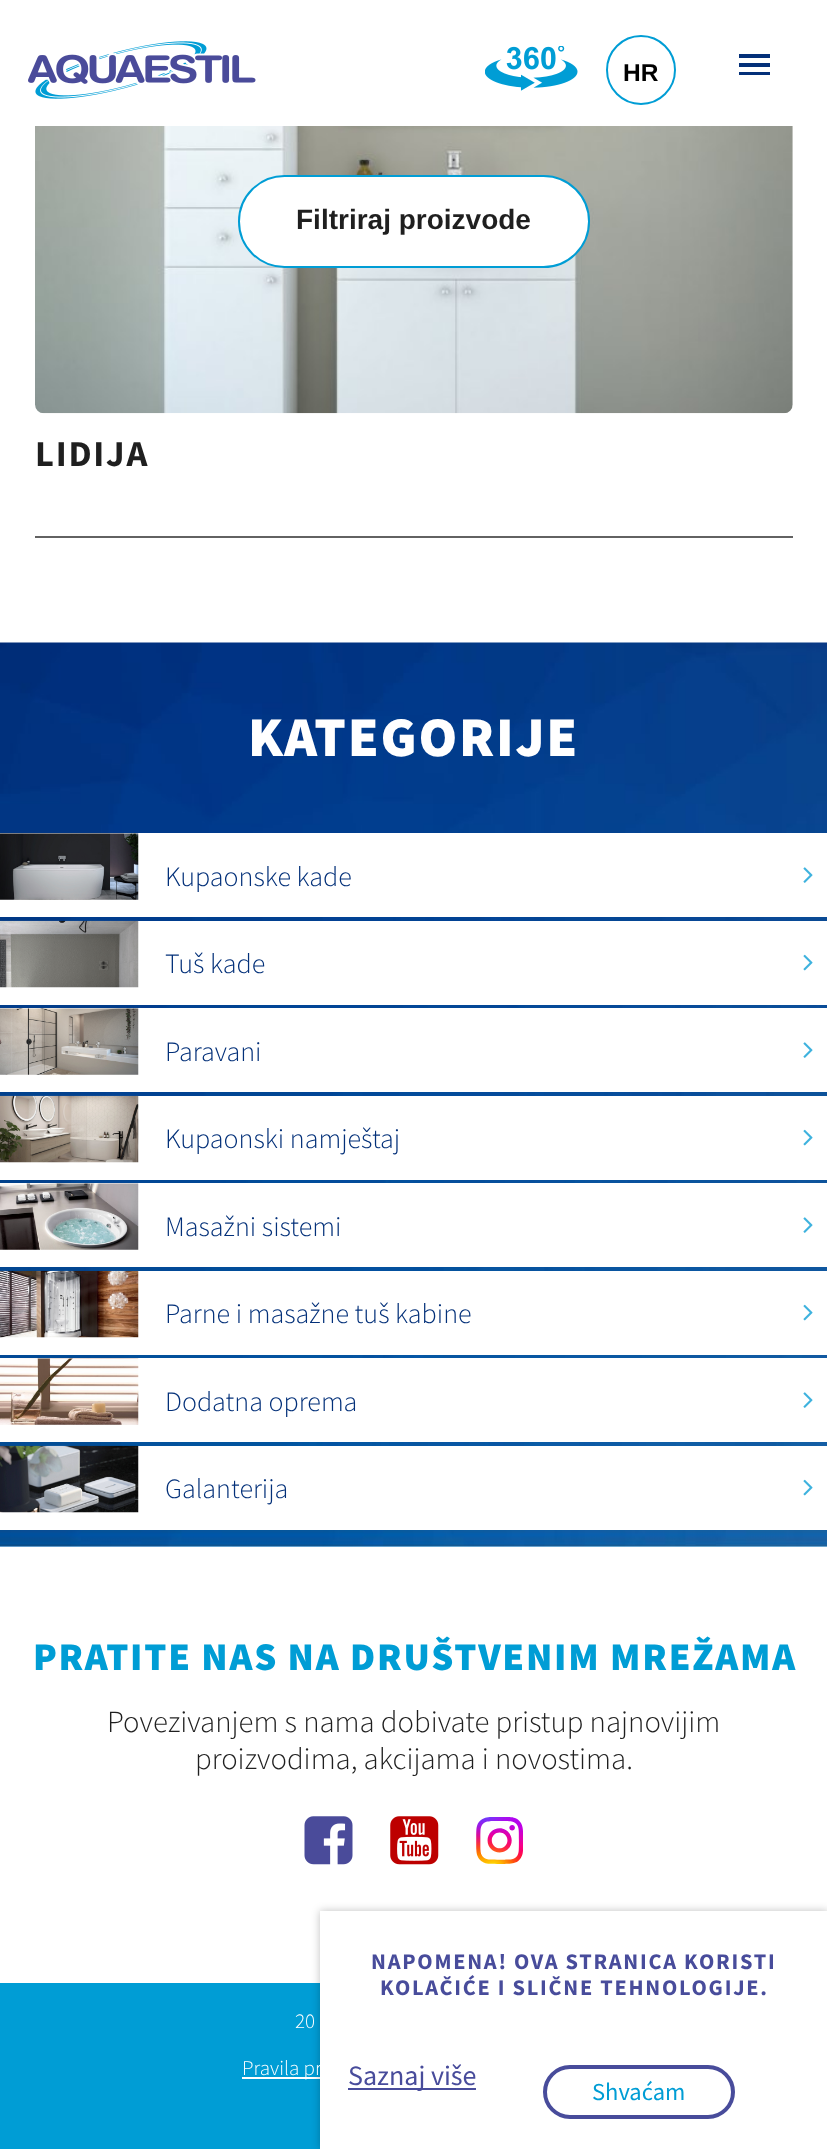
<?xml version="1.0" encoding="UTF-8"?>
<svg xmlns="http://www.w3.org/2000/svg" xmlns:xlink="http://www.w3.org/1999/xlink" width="827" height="2149">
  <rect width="100%" height="100%" fill="#ffffff" />
  <image x="28" y="41" width="228" height="58" xlink:href="image1.png" />
  <image x="485" y="46" width="93" height="45" xlink:href="image2.png" />
  <circle cx="641" cy="70" r="34" fill="none" stroke="#009dd5" stroke-width="2" />
  <rect x="739" y="54" width="31" height="4" fill="#033079" />
  <rect x="739" y="63" width="31" height="4" fill="#033079" />
  <rect x="739" y="72" width="31" height="3" fill="#033079" />
  <image x="35" y="126" width="758" height="288" xlink:href="image3.png" />
  <rect x="239" y="176" width="350" height="91" rx="45.5" fill="#ffffff" stroke="#009dd5" stroke-width="2" />
  <rect x="35" y="536" width="758" height="2" fill="#626262" />
  <image x="0" y="642" width="827" height="905" xlink:href="image4.png" />
  <rect y="833" width="827" height="84" fill="#ffffff" />
  <image x="0" y="833" width="139" height="67" xlink:href="image5.png" />
  <image x="803" y="867" width="10" height="16" xlink:href="image6.png" />
  <rect y="921" width="827" height="84" fill="#ffffff" />
  <image x="0" y="920" width="139" height="68" xlink:href="image7.png" />
  <image x="803" y="954" width="10" height="17" xlink:href="image8.png" />
  <rect y="1008" width="827" height="84" fill="#ffffff" />
  <image x="0" y="1008" width="139" height="67" xlink:href="image9.png" />
  <image x="803" y="1042" width="10" height="16" xlink:href="image6.png" />
  <rect y="1096" width="827" height="84" fill="#ffffff" />
  <image x="0" y="1095" width="139" height="68" xlink:href="image10.png" />
  <image x="803" y="1129" width="10" height="17" xlink:href="image8.png" />
  <rect y="1183" width="827" height="84" fill="#ffffff" />
  <image x="0" y="1183" width="139" height="67" xlink:href="image11.png" />
  <image x="803" y="1217" width="10" height="16" xlink:href="image6.png" />
  <rect y="1271" width="827" height="84" fill="#ffffff" />
  <image x="0" y="1270" width="139" height="68" xlink:href="image12.png" />
  <image x="803" y="1304" width="10" height="17" xlink:href="image8.png" />
  <rect y="1358" width="827" height="84" fill="#ffffff" />
  <image x="0" y="1358" width="139" height="67" xlink:href="image13.png" />
  <image x="803" y="1392" width="10" height="16" xlink:href="image6.png" />
  <rect y="1446" width="827" height="84" fill="#ffffff" />
  <image x="0" y="1445" width="139" height="68" xlink:href="image14.png" />
  <image x="803" y="1479" width="10" height="17" xlink:href="image8.png" />
  <image x="304" y="1816" width="49" height="49" xlink:href="image15.png" />
  <image x="390" y="1816" width="49" height="49" xlink:href="image16.png" />
  <image x="476" y="1817" width="47" height="47" xlink:href="image17.png" />
  <rect y="1983" width="320" height="166" fill="#009dd5" />
  <rect x="242" y="2077" width="78" height="2" fill="#ffffff" />
  <rect x="320" y="1911" width="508" height="238" fill="#000000" fill-opacity="0.25" filter="blur(4.5px)" />
  <rect x="320" y="1911" width="507" height="238" fill="#ffffff" />
  <rect x="348" y="2088" width="128" height="2" fill="#484c9b" />
  <rect x="545" y="2067" width="188" height="50" rx="25" fill="none" stroke="#484c9b" stroke-width="4" />
  <text x="623" y="81" style="font-family: Liberation Sans; font-size: 24.5px; font-weight: bold; fill: #000000">HR</text>
  <text x="296" y="229" style="font-family: Liberation Sans; font-size: 28px; font-weight: bold; fill: #1f1f1f">Filtriraj proizvode</text>
  <text x="35" y="466" style="font-family: Source Sans Pro; font-size: 36.5px; font-weight: bold; letter-spacing: 1.75px; fill: #1f1f1f">LIDIJA</text>
  <text x="248" y="756" style="font-family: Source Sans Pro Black; font-size: 56px; font-weight: 900; letter-spacing: 1.75px; fill: #ffffff">KATEGORIJE</text>
  <text x="165" y="886" style="font-family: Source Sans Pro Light; font-size: 28px; font-weight: 300; fill: #033079">Kupaonske kade</text>
  <text x="165" y="973" style="font-family: Source Sans Pro Light; font-size: 28px; font-weight: 300; fill: #033079">Tuš kade</text>
  <text x="165" y="1061" style="font-family: Source Sans Pro Light; font-size: 28px; font-weight: 300; fill: #033079">Paravani</text>
  <text x="165" y="1148" style="font-family: Source Sans Pro Light; font-size: 28px; font-weight: 300; fill: #033079">Kupaonski namještaj</text>
  <text x="165" y="1236" style="font-family: Source Sans Pro Light; font-size: 28px; font-weight: 300; fill: #033079">Masažni sistemi</text>
  <text x="165" y="1323" style="font-family: Source Sans Pro Light; font-size: 28px; font-weight: 300; fill: #033079">Parne i masažne tuš kabine</text>
  <text x="165" y="1411" style="font-family: Source Sans Pro Light; font-size: 28px; font-weight: 300; fill: #033079">Dodatna oprema</text>
  <text x="165" y="1498" style="font-family: Source Sans Pro Light; font-size: 28px; font-weight: 300; fill: #033079">Galanterija</text>
  <text x="33" y="1670" style="font-family: Source Sans Pro Black; font-size: 39.25px; font-weight: 900; letter-spacing: 1.75px; fill: #009dd5">PRATITE NAS NA DRUŠTVENIM MREŽAMA</text>
  <text x="107" y="1732" style="font-family: Source Sans Pro Light; font-size: 30.75px; font-weight: 300; fill: #1f1f1f">Povezivanjem s nama dobivate pristup najnovijim</text>
  <text x="195" y="1769" style="font-family: Source Sans Pro Light; font-size: 30.75px; font-weight: 300; fill: #1f1f1f">proizvodima, akcijama i novostima.</text>
  <text x="371" y="1969" style="font-family: Source Sans Pro; font-size: 22.4px; font-weight: bold; letter-spacing: 1.75px; fill: #484c9b">NAPOMENA! OVA STRANICA KORISTI</text>
  <text x="380" y="1995" style="font-family: Source Sans Pro; font-size: 22.4px; font-weight: bold; letter-spacing: 1.75px; fill: #484c9b">KOLAČIĆE I SLIČNE TEHNOLOGIJE.</text>
  <text x="348" y="2085" style="font-family: Source Sans Pro; font-size: 28px; fill: #484c9b">Saznaj više</text>
  <text x="592" y="2100" style="font-family: Source Sans Pro; font-size: 24.5px; fill: #009dd5">Shvaćam</text>
  <text x="295" y="2028" style="font-family: Source Sans Pro Light; font-size: 21px; font-weight: 300; fill: #ffffff">20</text>
  <text x="242" y="2075" style="font-family: Source Sans Pro Light; font-size: 21px; font-weight: 300; fill: #ffffff">Pravila pr</text>
</svg>
